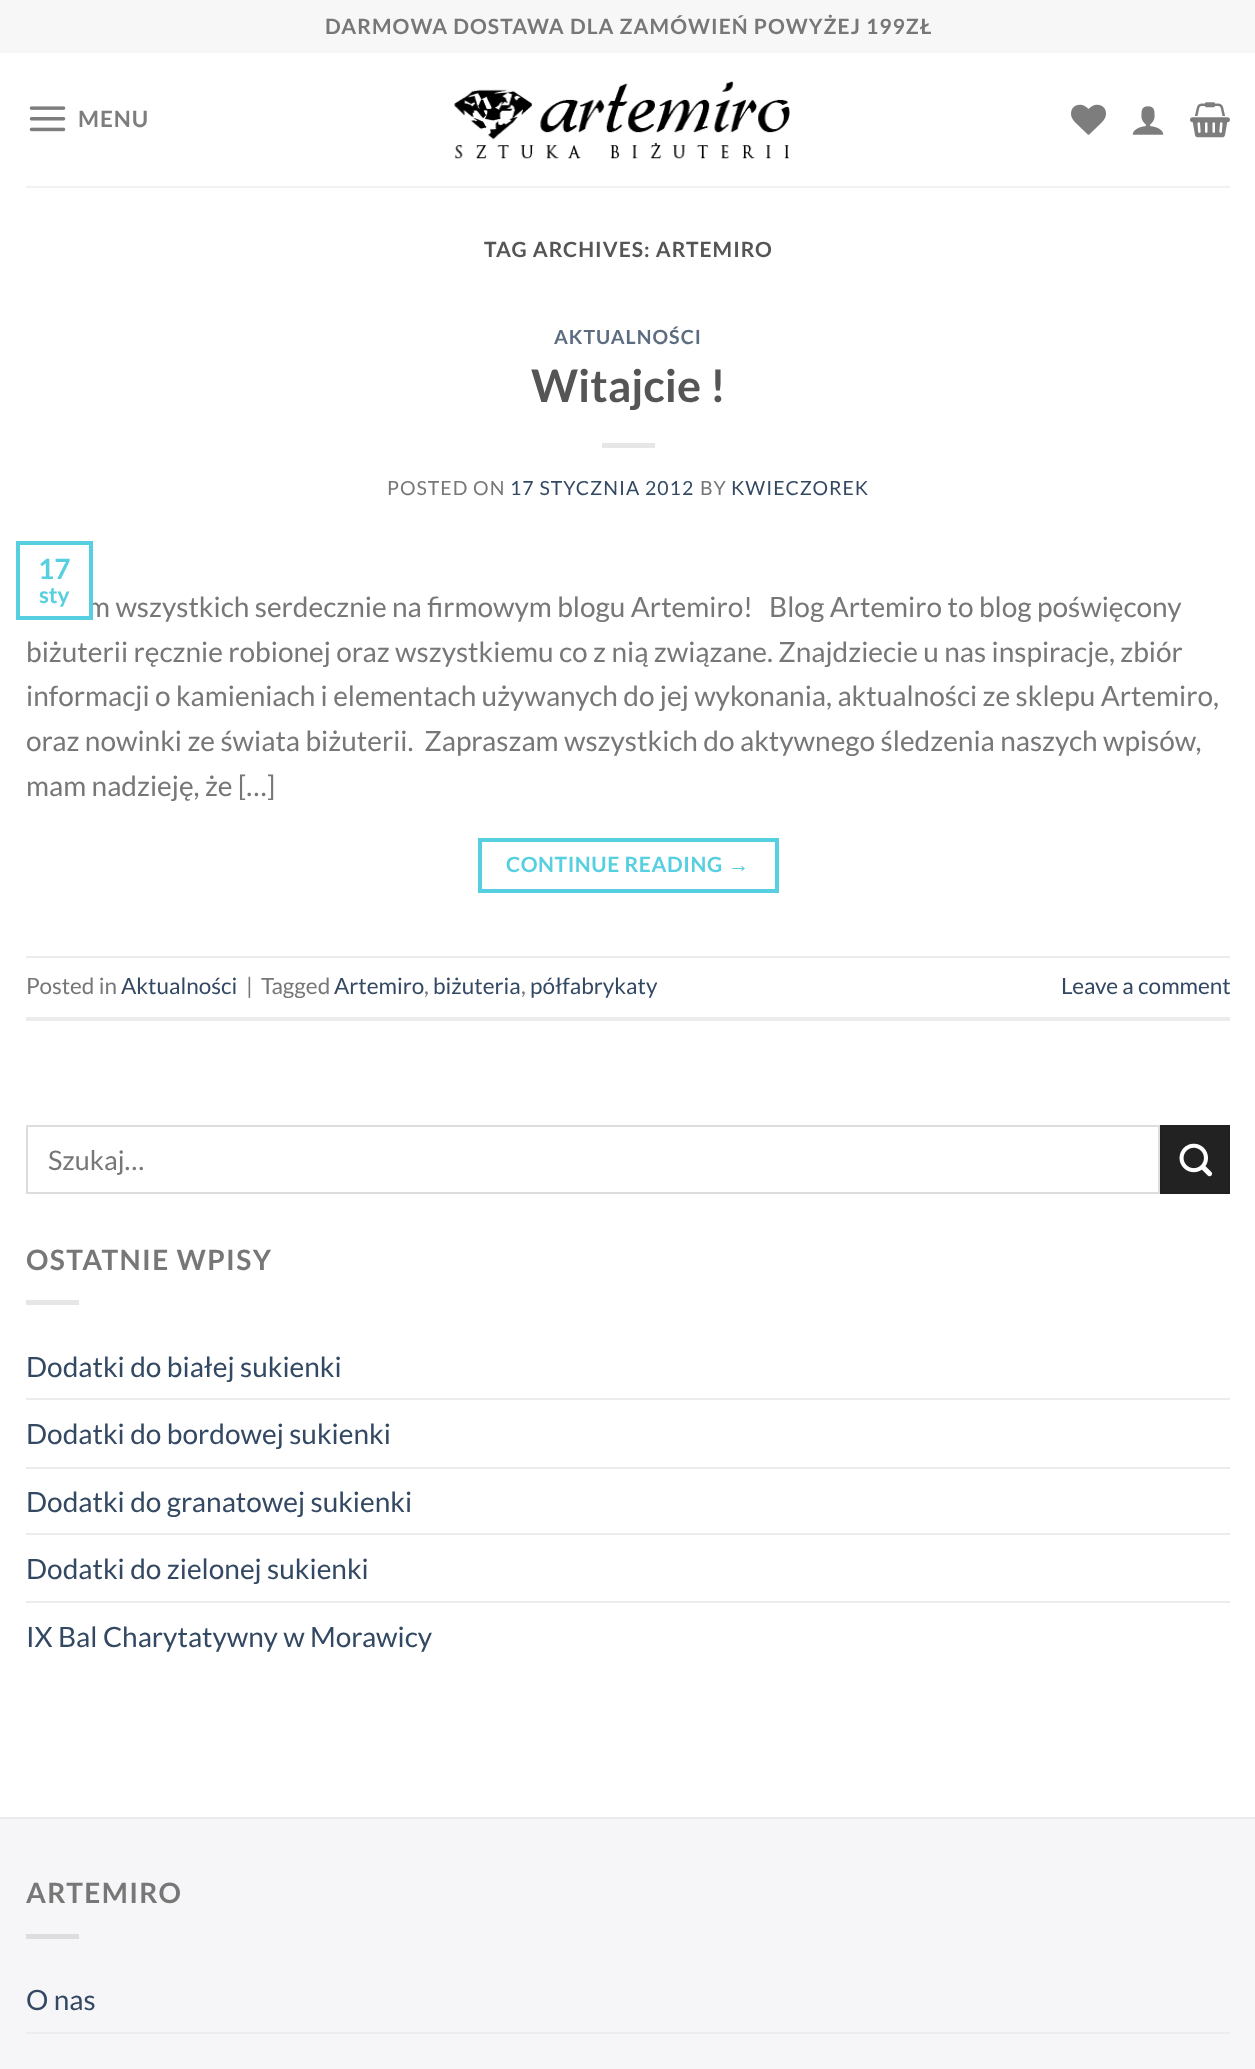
<?xml version="1.0" encoding="UTF-8"?>
<svg xmlns="http://www.w3.org/2000/svg" xmlns:xlink="http://www.w3.org/1999/xlink" width="1255" height="2069">
  <rect width="100%" height="100%" fill="#ffffff" />
  <rect width="1255" height="53" fill="#f7f7f7" />
  <image x="29" y="106" width="37" height="26" xlink:href="image1.png" />
  <image x="454" y="81" width="336" height="78" xlink:href="image2.png" />
  <image x="1071" y="104" width="35" height="31" xlink:href="image3.png" />
  <image x="1132" y="106" width="32" height="29" xlink:href="image4.png" />
  <image x="1190" y="102" width="40" height="36" xlink:href="image5.png" />
  <rect x="26" y="186" width="1204" height="2" fill="#f1f1f1" />
  <rect x="602" y="443" width="53" height="5" fill="#e6e6e6" />
  <rect x="480" y="840" width="297" height="51" fill="none" stroke="#56cfe1" stroke-width="4" />
  <rect x="26" y="956" width="1204" height="2" fill="#ececec" />
  <rect x="26" y="1017" width="1204" height="4" fill="#ececec" />
  <rect x="27" y="1126" width="1132" height="67" fill="none" stroke="#dddddd" stroke-width="2" />
  <rect x="1161" y="1126" width="68" height="67" fill="#222222" stroke="#202020" stroke-width="2" />
  <image x="1179" y="1143" width="34" height="34" xlink:href="image6.png" />
  <rect x="26" y="1300" width="53" height="5" fill="#e6e6e6" />
  <rect x="26" y="1398" width="1204" height="2" fill="#ececec" />
  <rect x="26" y="1467" width="1204" height="2" fill="#ececec" />
  <rect x="26" y="1533" width="1204" height="2" fill="#ececec" />
  <rect x="26" y="1601" width="1204" height="2" fill="#ececec" />
  <rect y="1819" width="1255" height="250" fill="#f6f6f8" />
  <rect y="1817" width="1255" height="2" fill="#eaeaec" />
  <rect x="26" y="1934" width="53" height="5" fill="#dddddf" />
  <rect x="26" y="2032" width="1204" height="2" fill="#ececec" />
  <text x="325" y="34" style="font-family: Lato; font-size: 21px; font-weight: bold; letter-spacing: 1.05px; fill: #777777">DARMOWA DOSTAWA DLA ZAMÓWIEŃ POWYŻEJ 199ZŁ</text>
  <text x="78" y="127" style="font-family: Lato; font-size: 22.5px; font-weight: bold; letter-spacing: 1px; fill: #7d7d7d">MENU</text>
  <text x="484" y="257" style="font-family: Lato; font-size: 21px; font-weight: bold; letter-spacing: 1.05px; fill: #555555">TAG ARCHIVES: ARTEMIRO</text>
  <text x="554" y="344" style="font-family: Lato; font-size: 19.5px; font-weight: bold; letter-spacing: 1px; fill: #5c6d81">AKTUALNOŚCI</text>
  <text x="531" y="402" style="font-family: Lato; font-size: 45px; font-weight: bold; fill: #555555">Witajcie !</text>
  <text x="387" y="495" style="font-family: Lato; font-size: 19.5px; letter-spacing: 1px; fill: #777777">POSTED ON</text>
  <text x="510" y="495" style="font-family: Lato; font-size: 19.5px; letter-spacing: 1px; fill: #334862">17 STYCZNIA 2012</text>
  <text x="700" y="495" style="font-family: Lato; font-size: 19.5px; letter-spacing: 1px; fill: #777777">BY</text>
  <text x="731" y="495" style="font-family: Lato; font-size: 19.5px; letter-spacing: 1px; fill: #334862">KWIECZOREK</text>
  <text x="87" y="617" style="font-family: Lato; font-size: 28px; fill: #777777" xml:space="preserve">m wszystkich serdecznie na firmowym blogu Artemiro!   Blog Artemiro to blog poświęcony</text>
  <rect x="88" y="602" width="1" height="14" fill="#ffffff" />
  <rect x="18" y="543" width="73" height="75" fill="none" stroke="#56cfe1" stroke-width="4" />
  <text x="39" y="603" style="font-family: Lato; font-size: 22.5px; font-weight: bold; fill: #56cfe1">sty</text>
  <text x="38" y="579" style="font-family: Lato; font-size: 28px; font-weight: bold; fill: #56cfe1">17</text>
  <text x="26" y="662" style="font-family: Lato; font-size: 28px; fill: #777777">biżuterii ręcznie robionej oraz wszystkiemu co z nią związane. Znajdziecie u nas inspiracje, zbiór</text>
  <text x="26" y="706" style="font-family: Lato; font-size: 28px; fill: #777777">informacji o kamieniach i elementach używanych do jej wykonania, aktualności ze sklepu Artemiro,</text>
  <text x="26" y="751" style="font-family: Lato; font-size: 28px; fill: #777777" xml:space="preserve">oraz nowinki ze świata biżuterii.  Zapraszam wszystkich do aktywnego śledzenia naszych wpisów,</text>
  <text x="26" y="796" style="font-family: Lato; font-size: 28px; fill: #777777">mam nadzieję, że […]</text>
  <text x="506" y="872" style="font-family: Lato; font-size: 21px; font-weight: bold; letter-spacing: 0.6px; fill: #56cfe1">CONTINUE READING</text>
  <text x="728" y="872" style="font-family: Liberation Sans; font-size: 21px; font-weight: bold; letter-spacing: 0.6px; fill: #56cfe1">→</text>
  <text x="26" y="994" style="font-family: Lato; font-size: 22.5px; fill: #777777">Posted in</text>
  <text x="121" y="994" style="font-family: Lato; font-size: 22.5px; fill: #334862">Aktualności</text>
  <text x="246" y="994" style="font-family: Lato; font-size: 22.5px; fill: #777777">|</text>
  <text x="261" y="994" style="font-family: Lato; font-size: 22.5px; fill: #777777">Tagged</text>
  <text x="334" y="994" style="font-family: Lato; font-size: 22.5px; fill: #334862">Artemiro</text>
  <text x="424" y="994" style="font-family: Lato; font-size: 22.5px; fill: #777777">,</text>
  <text x="433" y="994" style="font-family: Lato; font-size: 22.5px; fill: #334862">biżuteria</text>
  <text x="521" y="994" style="font-family: Lato; font-size: 22.5px; fill: #777777">,</text>
  <text x="530" y="994" style="font-family: Lato; font-size: 22.5px; fill: #334862">półfabrykaty</text>
  <text x="1061" y="994" style="font-family: Lato; font-size: 22.5px; fill: #334862">Leave a comment</text>
  <text x="48" y="1170" style="font-family: Lato; font-size: 27px; fill: #777777">Szukaj…</text>
  <text x="26" y="1270" style="font-family: Lato; font-size: 28px; font-weight: bold; letter-spacing: 1.4px; fill: #777777">OSTATNIE WPISY</text>
  <text x="26" y="1377" style="font-family: Lato; font-size: 28px; fill: #334862">Dodatki do białej sukienki</text>
  <text x="26" y="1444" style="font-family: Lato; font-size: 28px; fill: #334862">Dodatki do bordowej sukienki</text>
  <text x="26" y="1512" style="font-family: Lato; font-size: 28px; fill: #334862">Dodatki do granatowej sukienki</text>
  <text x="26" y="1579" style="font-family: Lato; font-size: 28px; fill: #334862">Dodatki do zielonej sukienki</text>
  <text x="26" y="1647" style="font-family: Lato; font-size: 28px; fill: #334862">IX Bal Charytatywny w Morawicy</text>
  <text x="26" y="1903" style="font-family: Lato; font-size: 28px; font-weight: bold; letter-spacing: 1.4px; fill: #777777">ARTEMIRO</text>
  <text x="26" y="2010" style="font-family: Lato; font-size: 28px; fill: #334862">O nas</text>
</svg>
